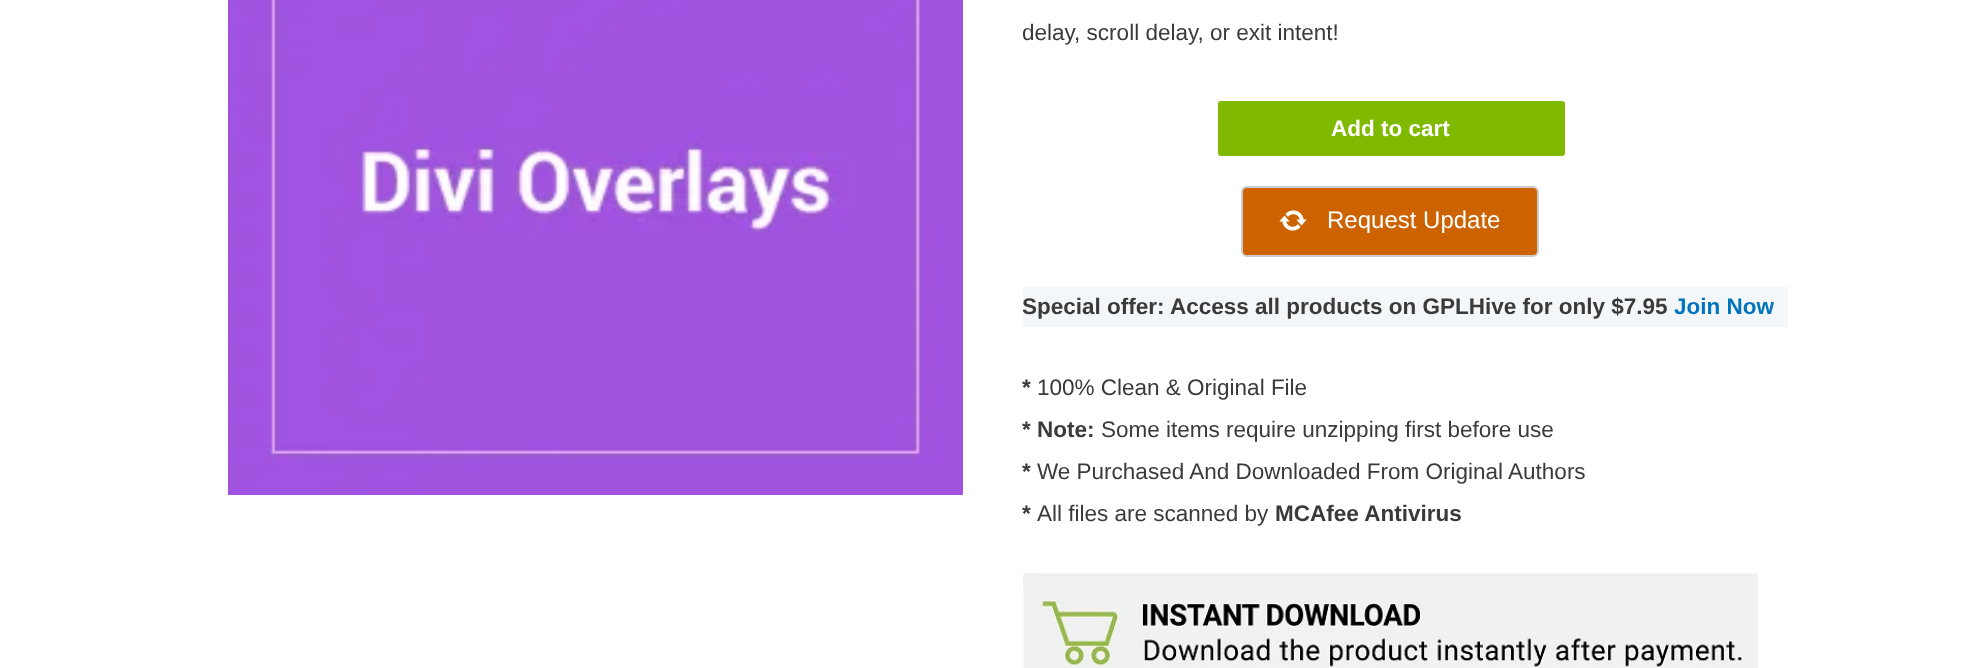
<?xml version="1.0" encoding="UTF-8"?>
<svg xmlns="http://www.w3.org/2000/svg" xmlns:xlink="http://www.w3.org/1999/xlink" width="1984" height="668">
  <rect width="100%" height="100%" fill="#ffffff" />
  <image x="228" y="0" width="735" height="495" xlink:href="image1.png" />
  <rect x="1218" y="101" width="347" height="55" rx="3" fill="#7fba00" />
  <rect x="1242" y="187" width="296" height="69" rx="5" fill="#cc6200" stroke="#cccccc" stroke-width="2" />
  <image x="1279" y="210" width="28" height="21" xlink:href="image2.png" />
  <rect x="1023" y="287" width="765" height="40" fill="#f4f7fa" />
  <image x="1023" y="573" width="735" height="95" xlink:href="image3.png" />
  <text x="1022" y="40" style="font-family: Liberation Sans; font-size: 22.5px; fill: #3a3a3a">delay, scroll delay, or exit intent!</text>
  <text x="1331" y="136" style="font-family: Liberation Sans; font-size: 22.5px; font-weight: bold; fill: #ffffff">Add to cart</text>
  <text x="1327" y="228" style="font-family: Liberation Sans; font-size: 24px; fill: #ffffff">Request Update</text>
  <text x="1022" y="314" style="font-family: Liberation Sans; font-size: 22.5px; font-weight: bold; fill: #3a3a3a">Special offer: Access all products on GPLHive for only $7.95</text>
  <text x="1674" y="314" style="font-family: Liberation Sans; font-size: 22.5px; font-weight: bold; fill: #0274be">Join Now</text>
  <text x="1022" y="395" style="font-family: Liberation Sans; font-size: 22.5px; font-weight: bold; fill: #3a3a3a">*</text>
  <text x="1037" y="395" style="font-family: Liberation Sans; font-size: 22.5px; fill: #3a3a3a">100% Clean &amp; Original File</text>
  <text x="1022" y="437" style="font-family: Liberation Sans; font-size: 22.5px; font-weight: bold; fill: #3a3a3a">* Note:</text>
  <text x="1101" y="437" style="font-family: Liberation Sans; font-size: 22.5px; fill: #3a3a3a">Some items require unzipping first before use</text>
  <text x="1022" y="479" style="font-family: Liberation Sans; font-size: 22.5px; font-weight: bold; fill: #3a3a3a">*</text>
  <text x="1037" y="479" style="font-family: Liberation Sans; font-size: 22.5px; fill: #3a3a3a">We Purchased And Downloaded From Original Authors</text>
  <text x="1022" y="521" style="font-family: Liberation Sans; font-size: 22.5px; font-weight: bold; fill: #3a3a3a">*</text>
  <text x="1037" y="521" style="font-family: Liberation Sans; font-size: 22.5px; fill: #3a3a3a">All files are scanned by</text>
  <text x="1275" y="521" style="font-family: Liberation Sans; font-size: 22.5px; font-weight: bold; fill: #3a3a3a">MCAfee Antivirus</text>
</svg>
